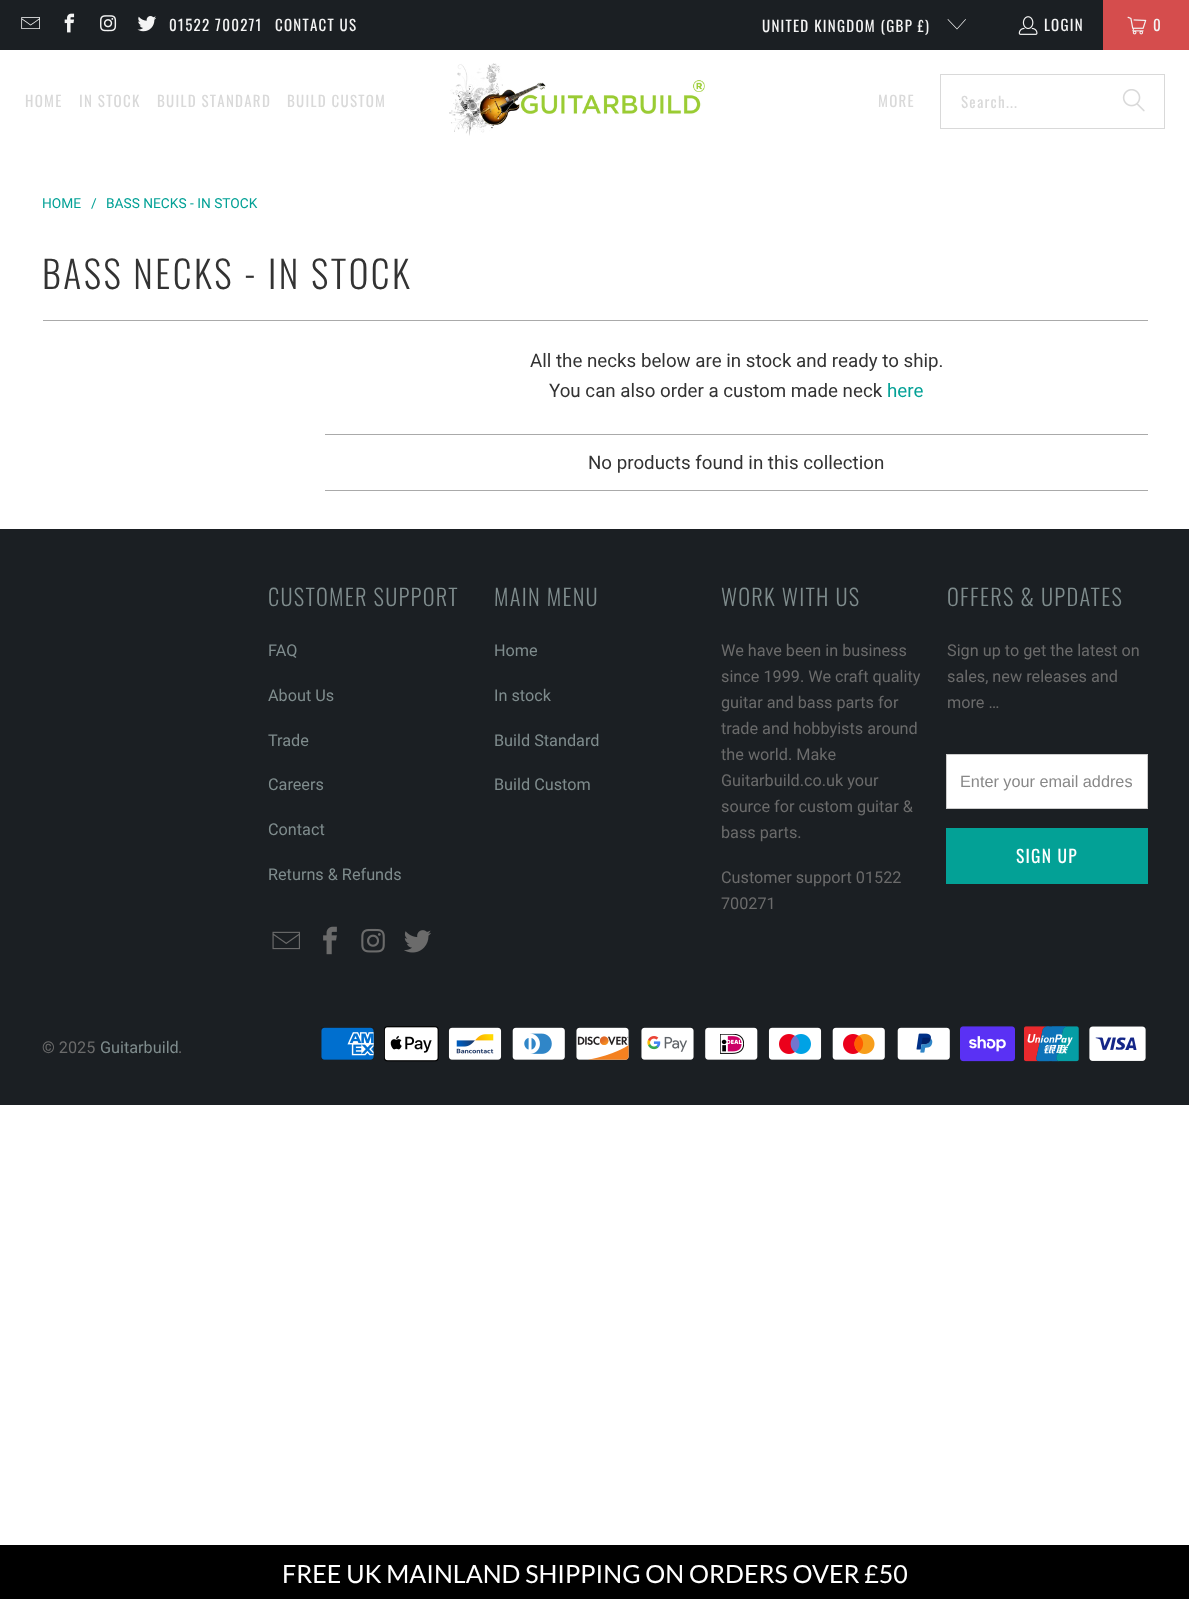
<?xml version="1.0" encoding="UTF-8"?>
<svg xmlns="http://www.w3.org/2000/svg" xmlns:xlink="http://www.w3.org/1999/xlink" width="1189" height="1599">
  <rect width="100%" height="100%" fill="#ffffff" />
  <rect width="1103" height="50" fill="#1b1f23" />
  <image x="21" y="17" width="19" height="12" xlink:href="image1.png" />
  <image x="64" y="13" width="11" height="20" xlink:href="image2.png" />
  <image x="100" y="15" width="17" height="17" xlink:href="image3.png" />
  <image x="137" y="16" width="20" height="16" xlink:href="image4.png" />
  <path d="M 957 29.5 l -9.5 -10 l 0.5 -0.5 l 9 9.5 l 8.5 -9.5 l 0.5 0.5 z" fill="#f4f4f4" />
  <image x="1018" y="16" width="20" height="19" xlink:href="image5.png" />
  <rect x="1103" width="86" height="50" fill="#d54d4d" />
  <image x="1127" y="16" width="20" height="19" xlink:href="image6.png" />
  <image x="449" y="63" width="256" height="73" xlink:href="image7.png" />
  <rect x="940.5" y="74.5" width="224" height="54" fill="none" stroke="#d9d9d9" />
  <image x="1122" y="89" width="23" height="23" xlink:href="image8.png" />
  <rect x="43" y="320" width="1105" height="1" fill="#aaaaaa" />
  <rect x="325" y="434" width="823" height="1" fill="#aaaaaa" />
  <rect x="325" y="490" width="823" height="1" fill="#aaaaaa" />
  <rect y="529" width="1189" height="576" fill="#1b1f23" />
  <image x="272" y="931" width="28" height="19" xlink:href="image9.png" />
  <image x="323" y="926" width="14" height="29" xlink:href="image10.png" />
  <image x="361" y="928" width="24" height="25" xlink:href="image11.png" />
  <image x="404" y="930" width="27" height="23" xlink:href="image12.png" />
  <rect x="946.5" y="754.5" width="201" height="54" fill="#ffffff" stroke="#cccccc" />
  <rect x="946" y="828" width="202" height="56" fill="#03a196" />
  <image x="321" y="1027" width="53" height="33" xlink:href="image13.png" />
  <image x="384" y="1026" width="55" height="36" xlink:href="image14.png" />
  <image x="448" y="1027" width="54" height="33" xlink:href="image15.png" />
  <image x="512" y="1027" width="53" height="33" xlink:href="image16.png" />
  <image x="576" y="1027" width="53" height="33" xlink:href="image17.png" />
  <image x="641" y="1027" width="53" height="33" xlink:href="image18.png" />
  <image x="705" y="1027" width="53" height="33" xlink:href="image19.png" />
  <image x="768" y="1027" width="54" height="33" xlink:href="image20.png" />
  <image x="832" y="1027" width="53" height="33" xlink:href="image21.png" />
  <image x="897" y="1027" width="53" height="33" xlink:href="image22.png" />
  <image x="960" y="1026" width="55" height="36" xlink:href="image23.png" />
  <image x="1024" y="1026" width="55" height="36" xlink:href="image24.png" />
  <image x="1089" y="1026" width="57" height="35" xlink:href="image25.png" />
  <rect y="1545" width="1189" height="54" fill="#000000" />
  <text x="169" y="31" style="font-family: Oswald; font-size: 15px; letter-spacing: 1.25px; fill: #f4f4f4">01522 700271</text>
  <text x="275" y="31" style="font-family: Oswald; font-size: 15px; letter-spacing: 1.25px; fill: #f4f4f4">CONTACT US</text>
  <text x="762" y="32" style="font-family: Oswald; font-size: 15px; letter-spacing: 1.25px; fill: #f4f4f4">UNITED KINGDOM (GBP £)</text>
  <text x="1044" y="31" style="font-family: Oswald; font-size: 15px; letter-spacing: 1.25px; fill: #f4f4f4">LOGIN</text>
  <text x="1153" y="31" style="font-family: Oswald; font-size: 15px; letter-spacing: 1.25px; fill: #f4f4f4">0</text>
  <text x="25" y="107" style="font-family: Oswald; font-size: 15px; letter-spacing: 1.25px; fill: #d9d9d9">HOME</text>
  <text x="79" y="107" style="font-family: Oswald; font-size: 15px; letter-spacing: 1.25px; fill: #d9d9d9">IN STOCK</text>
  <text x="157" y="107" style="font-family: Oswald; font-size: 15px; letter-spacing: 1.25px; fill: #d9d9d9">BUILD STANDARD</text>
  <text x="287" y="107" style="font-family: Oswald; font-size: 15px; letter-spacing: 1.25px; fill: #d9d9d9">BUILD CUSTOM</text>
  <text x="878" y="107" style="font-family: Oswald; font-size: 15px; letter-spacing: 1.25px; fill: #d9d9d9">MORE</text>
  <text x="961" y="108" style="font-family: Oswald; font-size: 15px; letter-spacing: 1.25px; fill: #d9d9d9">Search...</text>
  <text x="42" y="208" style="font-family: Roboto; font-size: 13.75px; fill: #03a196">HOME</text>
  <text x="91" y="208" style="font-family: Roboto; font-size: 13.75px; fill: #03a196">/</text>
  <text x="106" y="208" style="font-family: Roboto; font-size: 13.75px; fill: #03a196">BASS NECKS - IN STOCK</text>
  <text x="42" y="289" style="font-family: Oswald; font-size: 37.5px; font-weight: 300; letter-spacing: 2.5px; fill: #333333">BASS NECKS - IN STOCK</text>
  <text x="530" y="367" style="font-family: Roboto; font-size: 18.75px; fill: #333333">All the necks below are in stock and ready to ship.</text>
  <text x="549" y="397" style="font-family: Roboto; font-size: 18.75px; fill: #333333">You can also order a custom made neck</text>
  <text x="887" y="397" style="font-family: Roboto; font-size: 18.75px; fill: #03a196">here</text>
  <text x="588" y="469" style="font-family: Roboto; font-size: 18.75px; fill: #333333">No products found in this collection</text>
  <text x="268" y="606" style="font-family: Oswald; font-size: 22.5px; font-weight: 300; letter-spacing: 1.25px; fill: #7f8c8d">CUSTOMER SUPPORT</text>
  <text x="268" y="656" style="font-family: Roboto; font-size: 16.25px; fill: #7f8c8d">FAQ</text>
  <text x="268" y="701" style="font-family: Roboto; font-size: 16.25px; fill: #7f8c8d">About Us</text>
  <text x="268" y="746" style="font-family: Roboto; font-size: 16.25px; fill: #7f8c8d">Trade</text>
  <text x="268" y="790" style="font-family: Roboto; font-size: 16.25px; fill: #7f8c8d">Careers</text>
  <text x="268" y="835" style="font-family: Roboto; font-size: 16.25px; fill: #7f8c8d">Contact</text>
  <text x="268" y="880" style="font-family: Roboto; font-size: 16.25px; fill: #7f8c8d">Returns &amp; Refunds</text>
  <text x="494" y="606" style="font-family: Oswald; font-size: 22.5px; font-weight: 300; letter-spacing: 1.25px; fill: #7f8c8d">MAIN MENU</text>
  <text x="494" y="656" style="font-family: Roboto; font-size: 16.25px; fill: #7f8c8d">Home</text>
  <text x="494" y="701" style="font-family: Roboto; font-size: 16.25px; fill: #7f8c8d">In stock</text>
  <text x="494" y="746" style="font-family: Roboto; font-size: 16.25px; fill: #7f8c8d">Build Standard</text>
  <text x="494" y="790" style="font-family: Roboto; font-size: 16.25px; fill: #7f8c8d">Build Custom</text>
  <text x="721" y="606" style="font-family: Oswald; font-size: 22.5px; font-weight: 300; letter-spacing: 1.25px; fill: #7f8c8d">WORK WITH US</text>
  <text x="721" y="656" style="font-family: Roboto; font-size: 16.25px; fill: #6b6b6b">We have been in business</text>
  <text x="721" y="682" style="font-family: Roboto; font-size: 16.25px; fill: #6b6b6b">since 1999. We craft quality</text>
  <text x="721" y="708" style="font-family: Roboto; font-size: 16.25px; fill: #6b6b6b">guitar and bass parts for</text>
  <text x="721" y="734" style="font-family: Roboto; font-size: 16.25px; fill: #6b6b6b">trade and hobbyists around</text>
  <text x="721" y="760" style="font-family: Roboto; font-size: 16.25px; fill: #6b6b6b">the world. Make</text>
  <text x="721" y="786" style="font-family: Roboto; font-size: 16.25px; fill: #6b6b6b">Guitarbuild.co.uk your</text>
  <text x="721" y="812" style="font-family: Roboto; font-size: 16.25px; fill: #6b6b6b">source for custom guitar &amp;</text>
  <text x="721" y="838" style="font-family: Roboto; font-size: 16.25px; fill: #6b6b6b">bass parts.</text>
  <text x="721" y="883" style="font-family: Roboto; font-size: 16.25px; fill: #6b6b6b">Customer support 01522</text>
  <text x="721" y="909" style="font-family: Roboto; font-size: 16.25px; fill: #6b6b6b">700271</text>
  <text x="947" y="606" style="font-family: Oswald; font-size: 22.5px; font-weight: 300; letter-spacing: 1.25px; fill: #7f8c8d">OFFERS &amp; UPDATES</text>
  <text x="947" y="656" style="font-family: Roboto; font-size: 16.25px; fill: #6b6b6b">Sign up to get the latest on</text>
  <text x="947" y="682" style="font-family: Roboto; font-size: 16.25px; fill: #6b6b6b">sales, new releases and</text>
  <text x="947" y="708" style="font-family: Roboto; font-size: 16.25px; fill: #6b6b6b">more …</text>
  <text x="960" y="787" style="font-family: Liberation Sans; font-size: 16.25px; fill: #888888">Enter your email addres</text>
  <text x="1016" y="863" style="font-family: Oswald; font-size: 17.5px; letter-spacing: 1.25px; fill: #ffffff">SIGN UP</text>
  <text x="42" y="1053" style="font-family: Roboto; font-size: 16.25px; fill: #6b6b6b">© 2025</text>
  <text x="100" y="1053" style="font-family: Roboto; font-size: 16.25px; fill: #7f8c8d">Guitarbuild</text>
  <text x="178" y="1053" style="font-family: Roboto; font-size: 16.25px; fill: #6b6b6b">.</text>
  <text x="282" y="1583" style="font-family: Lato; font-size: 25px; fill: #ffffff">FREE UK MAINLAND SHIPPING ON ORDERS OVER £50</text>
</svg>
